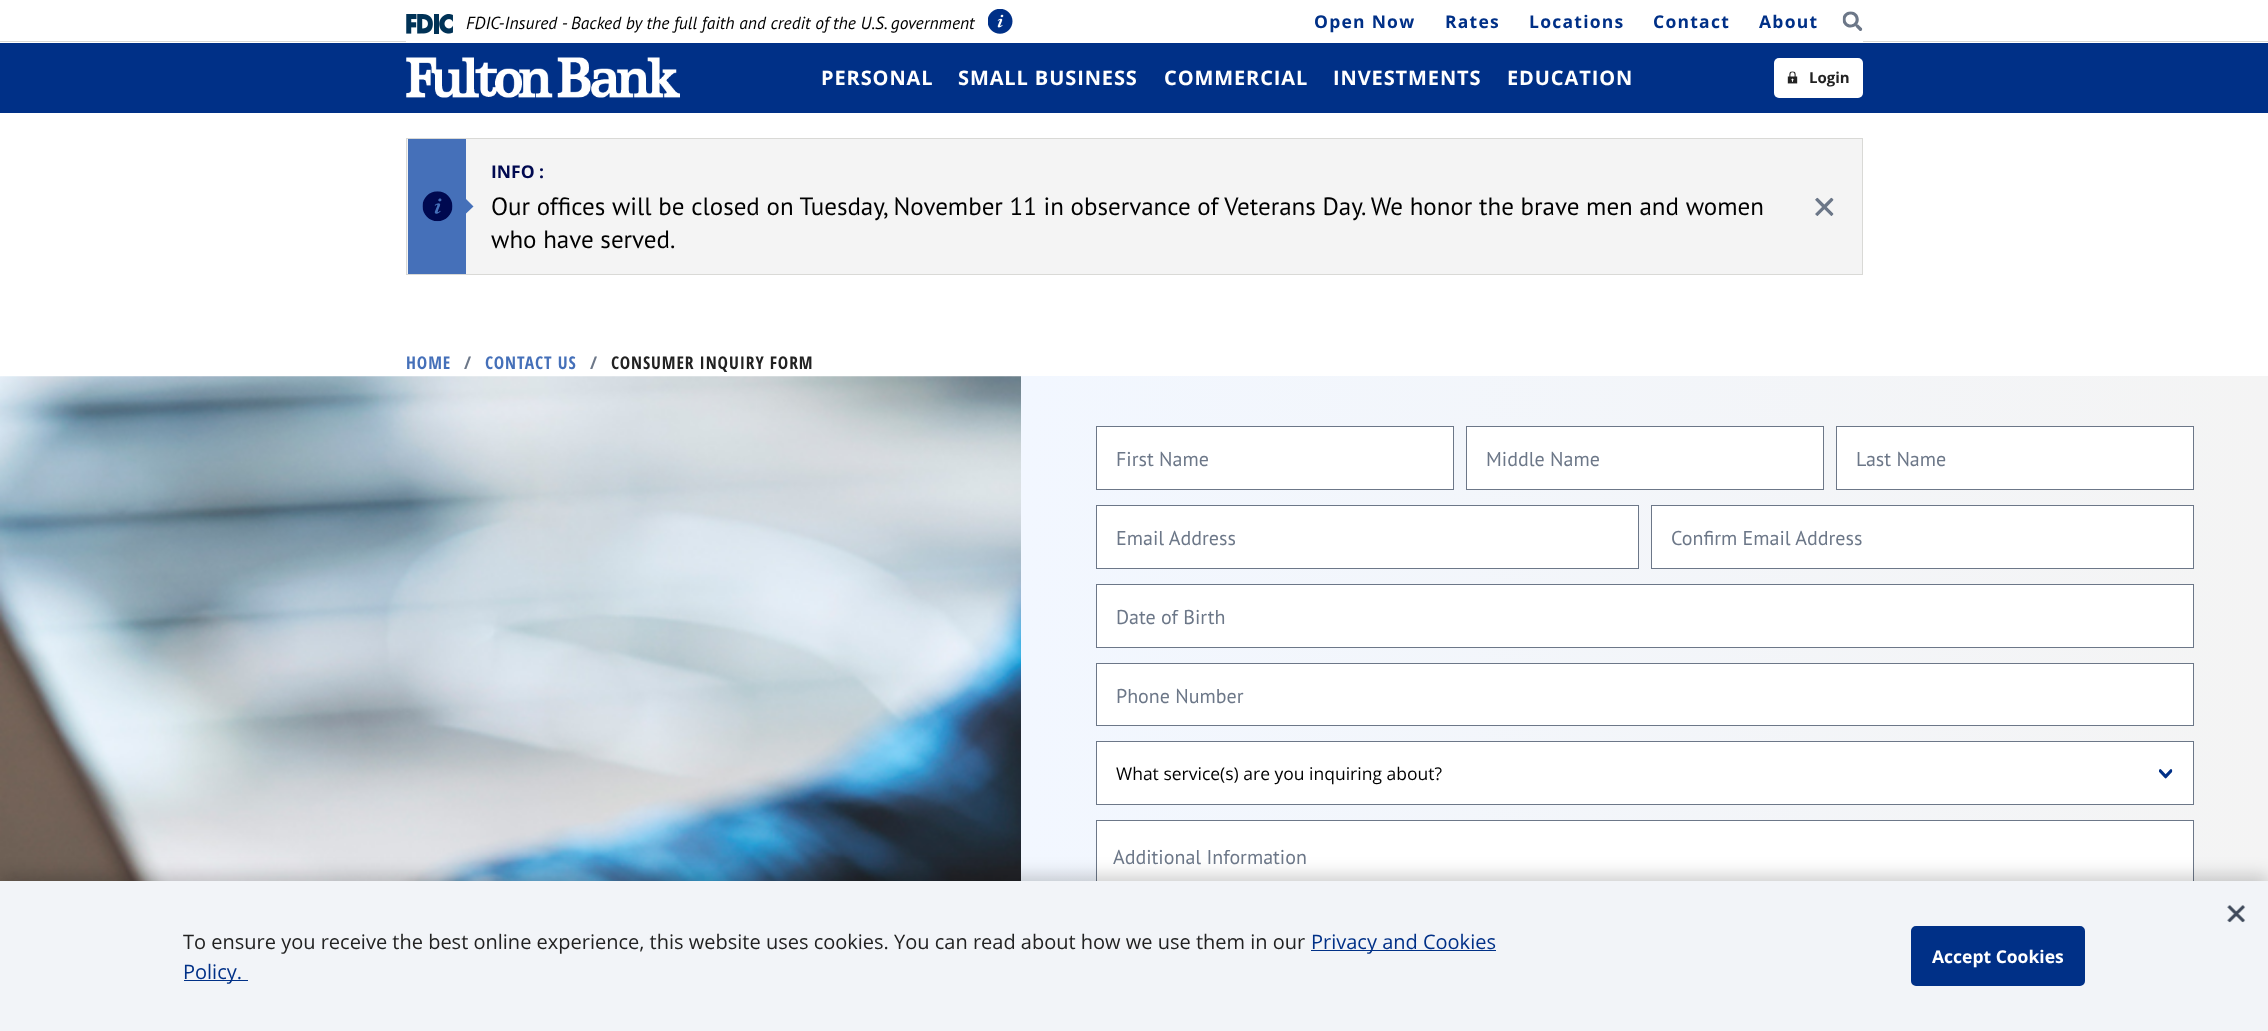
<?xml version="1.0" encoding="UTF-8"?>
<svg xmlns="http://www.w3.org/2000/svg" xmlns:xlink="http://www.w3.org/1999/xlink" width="2268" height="1031">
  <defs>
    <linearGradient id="g1" gradientUnits="userSpaceOnUse" x1="1021" y1="708" x2="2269" y2="708"><stop offset="0" stop-color="#f2f7ff" /><stop offset="1" stop-color="#f4f4f4" /></linearGradient>
  </defs>
  <rect width="100%" height="100%" fill="#ffffff" />
  <rect y="41" width="2268" height="1" fill="#d9d9d6" />
  <rect x="406" y="41" width="1457" height="1" fill="#ffffff" />
  <image x="406" y="14" width="47" height="20" xlink:href="image1.png" />
  <image x="988" y="9" width="25" height="25" xlink:href="image2.png" />
  <image x="1842" y="11" width="21" height="20" xlink:href="image3.png" />
  <rect y="43" width="2268" height="70" fill="#003087" />
  <image x="406" y="57" width="274" height="41" xlink:href="image4.png" />
  <rect x="1774" y="58" width="89" height="40" rx="5" fill="#ffffff" />
  <image x="1787" y="71" width="11" height="13" xlink:href="image5.png" />
  <rect x="406.5" y="138.5" width="1456" height="136" fill="#f4f4f4" stroke="#d9d9d6" />
  <rect x="408" y="139" width="58" height="135" fill="#4570b9" />
  <image x="422" y="191" width="31" height="31" xlink:href="image6.png" />
  <path d="M 466 199 l 7.5 7.5 l -7.5 7 l -7 -7 z" fill="#4570b9" />
  <image x="1815" y="197" width="19" height="19" xlink:href="image7.png" />
  <image x="0" y="376" width="1021" height="505" xlink:href="image8.png" />
  <rect x="1021" y="376" width="1247" height="505" fill="url(#g1)" />
  <rect x="1097" y="427" width="356" height="62" fill="#ffffff" />
  <rect x="1096.5" y="426.5" width="357" height="63" fill="none" stroke="#6c7788" />
  <rect x="1467" y="427" width="356" height="62" fill="#ffffff" />
  <rect x="1466.5" y="426.5" width="357" height="63" fill="none" stroke="#6c7788" />
  <rect x="1837" y="427" width="356" height="62" fill="#ffffff" />
  <rect x="1836.5" y="426.5" width="357" height="63" fill="none" stroke="#6c7788" />
  <rect x="1097" y="506" width="541" height="62" fill="#ffffff" />
  <rect x="1096.5" y="505.5" width="542" height="63" fill="none" stroke="#6c7788" />
  <rect x="1652" y="506" width="541" height="62" fill="#ffffff" />
  <rect x="1651.5" y="505.5" width="542" height="63" fill="none" stroke="#6c7788" />
  <rect x="1097" y="585" width="1096" height="62" fill="#ffffff" />
  <rect x="1096.5" y="584.5" width="1097" height="63" fill="none" stroke="#6c7788" />
  <rect x="1097" y="664" width="1096" height="61" fill="#ffffff" />
  <rect x="1096.5" y="663.5" width="1097" height="62" fill="none" stroke="#6c7788" />
  <rect x="1097" y="742" width="1096" height="62" fill="#ffffff" />
  <image x="2159" y="769" width="14" height="10" xlink:href="image9.png" />
  <rect x="1096.5" y="741.5" width="1097" height="63" fill="none" stroke="#6c7788" />
  <rect x="1097" y="821" width="1096" height="60" fill="#ffffff" />
  <rect x="1096.5" y="820.5" width="1097" height="99" fill="none" stroke="#6c7788" />
  <rect y="876" width="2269" height="150" fill="#000000" fill-opacity="0.2" filter="blur(9px)" />
  <rect y="881" width="2268" height="150" fill="#f2f4f8" />
  <image x="2227" y="905" width="19" height="18" xlink:href="image10.png" />
  <rect x="1311" y="950" width="185" height="1" fill="#003087" />
  <rect x="184" y="980" width="64" height="1" fill="#003087" />
  <rect x="1912.5" y="927.5" width="171" height="57" rx="3.5" fill="#003087" stroke="#003087" stroke-width="3" />
  <text x="466" y="29" style="font-family: PT Sans; font-size: 17.5px; font-style: italic; fill: #000000">FDIC-Insured - Backed by the full faith and credit of the U.S. government</text>
  <text x="1314" y="28" style="font-family: Open Sans; font-size: 17.5px; font-weight: bold; letter-spacing: 1.25px; fill: #003087">Open Now</text>
  <text x="1445" y="28" style="font-family: Open Sans; font-size: 17.5px; font-weight: bold; letter-spacing: 1.25px; fill: #003087">Rates</text>
  <text x="1529" y="28" style="font-family: Open Sans; font-size: 17.5px; font-weight: bold; letter-spacing: 1.25px; fill: #003087">Locations</text>
  <text x="1653" y="28" style="font-family: Open Sans; font-size: 17.5px; font-weight: bold; letter-spacing: 1.25px; fill: #003087">Contact</text>
  <text x="1759" y="28" style="font-family: Open Sans; font-size: 17.5px; font-weight: bold; letter-spacing: 1.25px; fill: #003087">About</text>
  <text x="821" y="85" style="font-family: Open Sans; font-size: 20px; font-weight: bold; letter-spacing: 0.9px; fill: #ffffff">PERSONAL</text>
  <text x="958" y="85" style="font-family: Open Sans; font-size: 20px; font-weight: bold; letter-spacing: 0.9px; fill: #ffffff">SMALL BUSINESS</text>
  <text x="1164" y="85" style="font-family: Open Sans; font-size: 20px; font-weight: bold; letter-spacing: 0.9px; fill: #ffffff">COMMERCIAL</text>
  <text x="1333" y="85" style="font-family: Open Sans; font-size: 20px; font-weight: bold; letter-spacing: 0.9px; fill: #ffffff">INVESTMENTS</text>
  <text x="1507" y="85" style="font-family: Open Sans; font-size: 20px; font-weight: bold; letter-spacing: 0.9px; fill: #ffffff">EDUCATION</text>
  <text x="1809" y="83" style="font-family: Open Sans; font-size: 15px; font-weight: bold; fill: #222222">Login</text>
  <text x="491" y="178" style="font-family: Open Sans; font-size: 17.5px; font-weight: bold; fill: #000950">INFO :</text>
  <text x="491" y="215" style="font-family: PT Sans; font-size: 25px; fill: #000000">Our offices will be closed on Tuesday, November 11 in observance of Veterans Day. We honor the brave men and women</text>
  <text x="491" y="248" style="font-family: PT Sans; font-size: 25px; fill: #000000">who have served.</text>
  <text x="406" y="369" style="font-family: Open Sans Condensed; font-size: 17.5px; font-weight: bold; letter-spacing: 0.9px; fill: #4570b9">HOME</text>
  <text x="464" y="369" style="font-family: Open Sans Condensed; font-size: 17.5px; font-weight: bold; letter-spacing: 0.9px; fill: #6c7788">/</text>
  <text x="485" y="369" style="font-family: Open Sans Condensed; font-size: 17.5px; font-weight: bold; letter-spacing: 0.9px; fill: #4570b9">CONTACT US</text>
  <text x="590" y="369" style="font-family: Open Sans Condensed; font-size: 17.5px; font-weight: bold; letter-spacing: 0.9px; fill: #6c7788">/</text>
  <text x="611" y="369" style="font-family: Open Sans Condensed; font-size: 17.5px; font-weight: bold; letter-spacing: 0.9px; fill: #222222">CONSUMER INQUIRY FORM</text>
  <text x="1116" y="466" style="font-family: PT Sans; font-size: 20px; fill: #6c7788">First Name</text>
  <text x="1486" y="466" style="font-family: PT Sans; font-size: 20px; fill: #6c7788">Middle Name</text>
  <text x="1856" y="466" style="font-family: PT Sans; font-size: 20px; fill: #6c7788">Last Name</text>
  <text x="1116" y="545" style="font-family: PT Sans; font-size: 20px; fill: #6c7788">Email Address</text>
  <text x="1671" y="545" style="font-family: PT Sans; font-size: 20px; fill: #6c7788">Confirm Email Address</text>
  <text x="1116" y="624" style="font-family: PT Sans; font-size: 20px; fill: #6c7788">Date of Birth</text>
  <text x="1116" y="703" style="font-family: PT Sans; font-size: 20px; fill: #6c7788">Phone Number</text>
  <text x="1116" y="780" style="font-family: Open Sans; font-size: 17.5px; fill: #000000">What service(s) are you inquiring about?</text>
  <text x="1113" y="864" style="font-family: PT Sans; font-size: 20px; fill: #6c7788">Additional Information</text>
  <text x="183" y="949" style="font-family: Open Sans; font-size: 20px; fill: #222222">To ensure you receive the best online experience, this website uses cookies. You can read about how we use them in our</text>
  <text x="1311" y="949" style="font-family: Open Sans; font-size: 20px; fill: #003087">Privacy and Cookies</text>
  <text x="183" y="979" style="font-family: Open Sans; font-size: 20px; fill: #003087">Policy.</text>
  <text x="1932" y="963" style="font-family: Open Sans; font-size: 17.5px; font-weight: bold; fill: #ffffff">Accept Cookies</text>
</svg>
